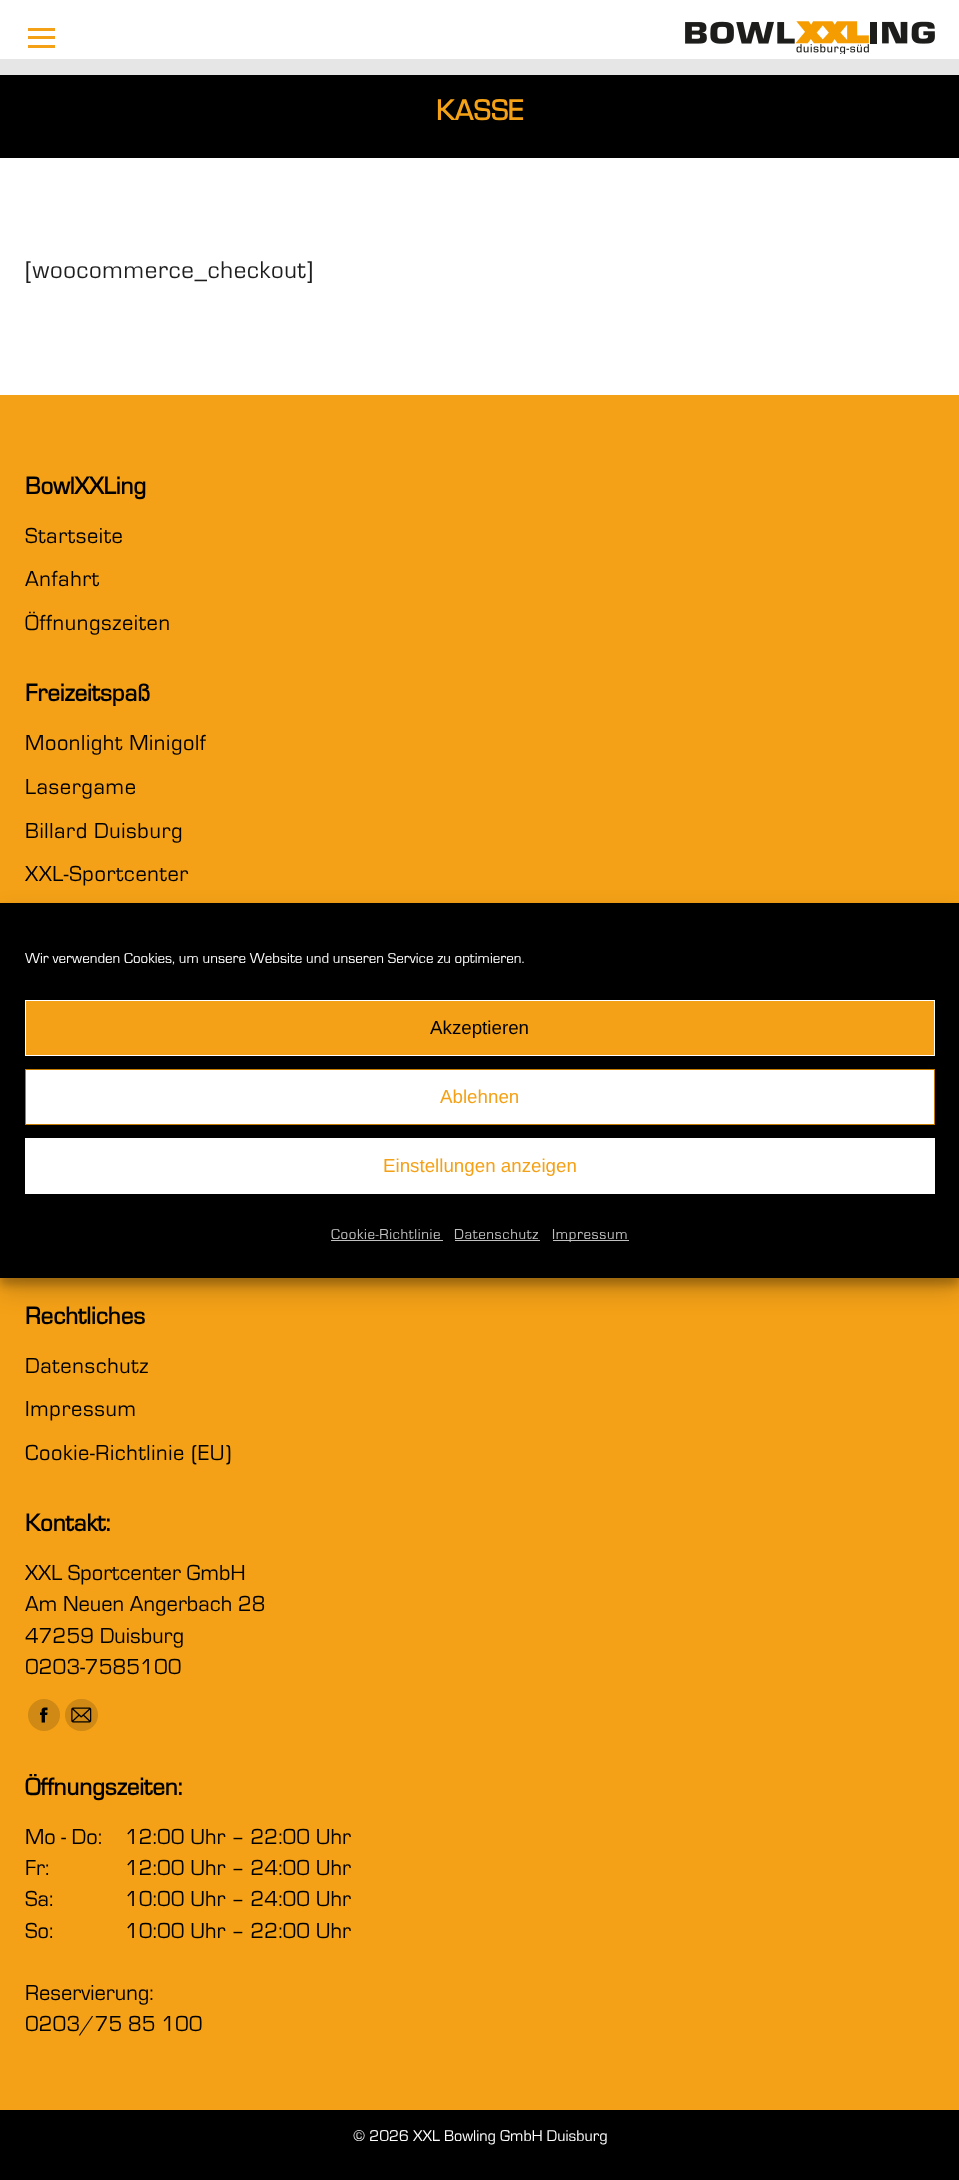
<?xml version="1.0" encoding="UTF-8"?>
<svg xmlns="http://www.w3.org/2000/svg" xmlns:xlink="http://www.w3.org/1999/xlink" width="959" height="2180">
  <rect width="100%" height="100%" fill="#ffffff" />
  <rect x="28" y="28" width="27" height="3" fill="#f4a117" />
  <rect x="28" y="36" width="27" height="3" fill="#f4a117" />
  <rect x="28" y="45" width="27" height="3" fill="#f4a117" />
  <image x="685" y="21" width="250" height="33" xlink:href="image1.png" />
  <rect y="75" width="959" height="83" fill="#000000" />
  <rect y="59" width="959" height="16" fill="#e6e6e6" />
  <rect y="395" width="959" height="1715" fill="#f4a117" />
  <circle cx="44" cy="1715" r="16" fill="#cf8914" />
  <image x="40" y="1707" width="8" height="16" xlink:href="image2.png" />
  <rect x="65" y="1699" width="33" height="32" rx="16" fill="#cf8914" />
  <image x="71" y="1707" width="21" height="16" xlink:href="image3.png" />
  <rect y="2110" width="959" height="70" fill="#000000" />
  <rect y="910" width="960" height="375" fill="#000000" fill-opacity="0.23" filter="blur(4px)" />
  <rect y="915" width="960" height="375" fill="#000000" fill-opacity="0.19" filter="blur(12.5px)" />
  <rect y="903" width="959" height="375" fill="#000000" />
  <rect x="25.5" y="1000.5" width="909" height="55" fill="#f4a117" stroke="#ffffff" />
  <rect x="25.5" y="1069.5" width="909" height="55" fill="#ffffff" stroke="#c27b00" />
  <rect x="25" y="1138" width="910" height="56" fill="#ffffff" />
  <rect x="331" y="1240" width="112" height="1" fill="#c1c1c1" />
  <rect x="455" y="1240" width="85" height="1" fill="#c1c1c1" />
  <rect x="553" y="1240" width="76" height="1" fill="#c1c1c1" />
  <text x="436" y="120" style="font-family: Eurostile; font-size: 30px; font-weight: bold; letter-spacing: 0.6px; fill: #f4a117">KASSE</text>
  <text x="25" y="278" style="font-family: Eurostile; font-size: 25px; letter-spacing: 0.6px; fill: #1e1e1e">[woocommerce_checkout]</text>
  <text x="25" y="494" style="font-family: Eurostile; font-size: 25px; font-weight: bold; fill: #000000">BowlXXLing</text>
  <text x="25" y="543" style="font-family: Eurostile; font-size: 22.5px; letter-spacing: 0.6px; fill: #000000">Startseite</text>
  <text x="25" y="586" style="font-family: Eurostile; font-size: 22.5px; letter-spacing: 0.6px; fill: #000000">Anfahrt</text>
  <text x="25" y="630" style="font-family: Eurostile; font-size: 22.5px; letter-spacing: 0.6px; fill: #000000">Öffnungszeiten</text>
  <text x="25" y="701" style="font-family: Eurostile; font-size: 25px; font-weight: bold; fill: #000000">Freizeitspaß</text>
  <text x="25" y="750" style="font-family: Eurostile; font-size: 22.5px; letter-spacing: 0.6px; fill: #000000">Moonlight Minigolf</text>
  <text x="25" y="794" style="font-family: Eurostile; font-size: 22.5px; letter-spacing: 0.6px; fill: #000000">Lasergame</text>
  <text x="25" y="838" style="font-family: Eurostile; font-size: 22.5px; letter-spacing: 0.6px; fill: #000000">Billard Duisburg</text>
  <text x="25" y="881" style="font-family: Eurostile; font-size: 22.5px; letter-spacing: 0.6px; fill: #000000">XXL-Sportcenter</text>
  <text x="25" y="1324" style="font-family: Eurostile; font-size: 25px; font-weight: bold; fill: #000000">Rechtliches</text>
  <text x="25" y="1373" style="font-family: Eurostile; font-size: 22.5px; letter-spacing: 0.6px; fill: #000000">Datenschutz</text>
  <text x="25" y="1416" style="font-family: Eurostile; font-size: 22.5px; letter-spacing: 0.6px; fill: #000000">Impressum</text>
  <text x="25" y="1460" style="font-family: Eurostile; font-size: 22.5px; letter-spacing: 0.6px; fill: #000000">Cookie-Richtlinie (EU)</text>
  <text x="25" y="1531" style="font-family: Eurostile; font-size: 25px; font-weight: bold; fill: #000000">Kontakt:</text>
  <text x="25" y="1580" style="font-family: Eurostile; font-size: 22.5px; fill: #000000">XXL Sportcenter GmbH</text>
  <text x="25" y="1611" style="font-family: Eurostile; font-size: 22.5px; fill: #000000">Am Neuen Angerbach 28</text>
  <text x="25" y="1643" style="font-family: Eurostile; font-size: 22.5px; fill: #000000">47259 Duisburg</text>
  <text x="25" y="1674" style="font-family: Eurostile; font-size: 22.5px; fill: #000000">0203-7585100</text>
  <text x="25" y="1795" style="font-family: Eurostile; font-size: 25px; font-weight: bold; fill: #000000">Öffnungszeiten:</text>
  <text x="25" y="1844" style="font-family: Eurostile; font-size: 22.5px; fill: #000000">Mo - Do:</text>
  <text x="125" y="1844" style="font-family: Eurostile; font-size: 22.5px; fill: #000000">12:00 Uhr – 22:00 Uhr</text>
  <text x="25" y="1875" style="font-family: Eurostile; font-size: 22.5px; fill: #000000">Fr:</text>
  <text x="125" y="1875" style="font-family: Eurostile; font-size: 22.5px; fill: #000000">12:00 Uhr – 24:00 Uhr</text>
  <text x="25" y="1906" style="font-family: Eurostile; font-size: 22.5px; fill: #000000">Sa:</text>
  <text x="125" y="1906" style="font-family: Eurostile; font-size: 22.5px; fill: #000000">10:00 Uhr – 24:00 Uhr</text>
  <text x="25" y="1938" style="font-family: Eurostile; font-size: 22.5px; fill: #000000">So:</text>
  <text x="125" y="1938" style="font-family: Eurostile; font-size: 22.5px; fill: #000000">10:00 Uhr – 22:00 Uhr</text>
  <text x="25" y="2000" style="font-family: Eurostile; font-size: 22.5px; fill: #000000">Reservierung:</text>
  <text x="25" y="2031" style="font-family: Eurostile; font-size: 22.5px; fill: #000000">0203/75 85 100</text>
  <text x="353" y="2141" style="font-family: Eurostile; font-size: 16.25px; fill: #ffffff">© 2026 XXL Bowling GmbH Duisburg</text>
  <text x="25" y="963" style="font-family: Eurostile; font-size: 15px; fill: #ffffff">Wir verwenden Cookies, um unsere Website und unseren Service zu optimieren.</text>
  <text x="430" y="1034" style="font-family: Liberation Sans; font-size: 18.75px; fill: #000000">Akzeptieren</text>
  <text x="440" y="1103" style="font-family: Liberation Sans; font-size: 18.75px; fill: #f4a117">Ablehnen</text>
  <text x="383" y="1172" style="font-family: Liberation Sans; font-size: 18.75px; fill: #f4a117">Einstellungen anzeigen</text>
  <text x="331" y="1239" style="font-family: Eurostile; font-size: 15px; letter-spacing: 0.6px; fill: #c1c1c1">Cookie-Richtlinie</text>
  <text x="454" y="1239" style="font-family: Eurostile; font-size: 15px; letter-spacing: 0.6px; fill: #c1c1c1">Datenschutz</text>
  <text x="552" y="1239" style="font-family: Eurostile; font-size: 15px; letter-spacing: 0.6px; fill: #c1c1c1">Impressum</text>
</svg>
